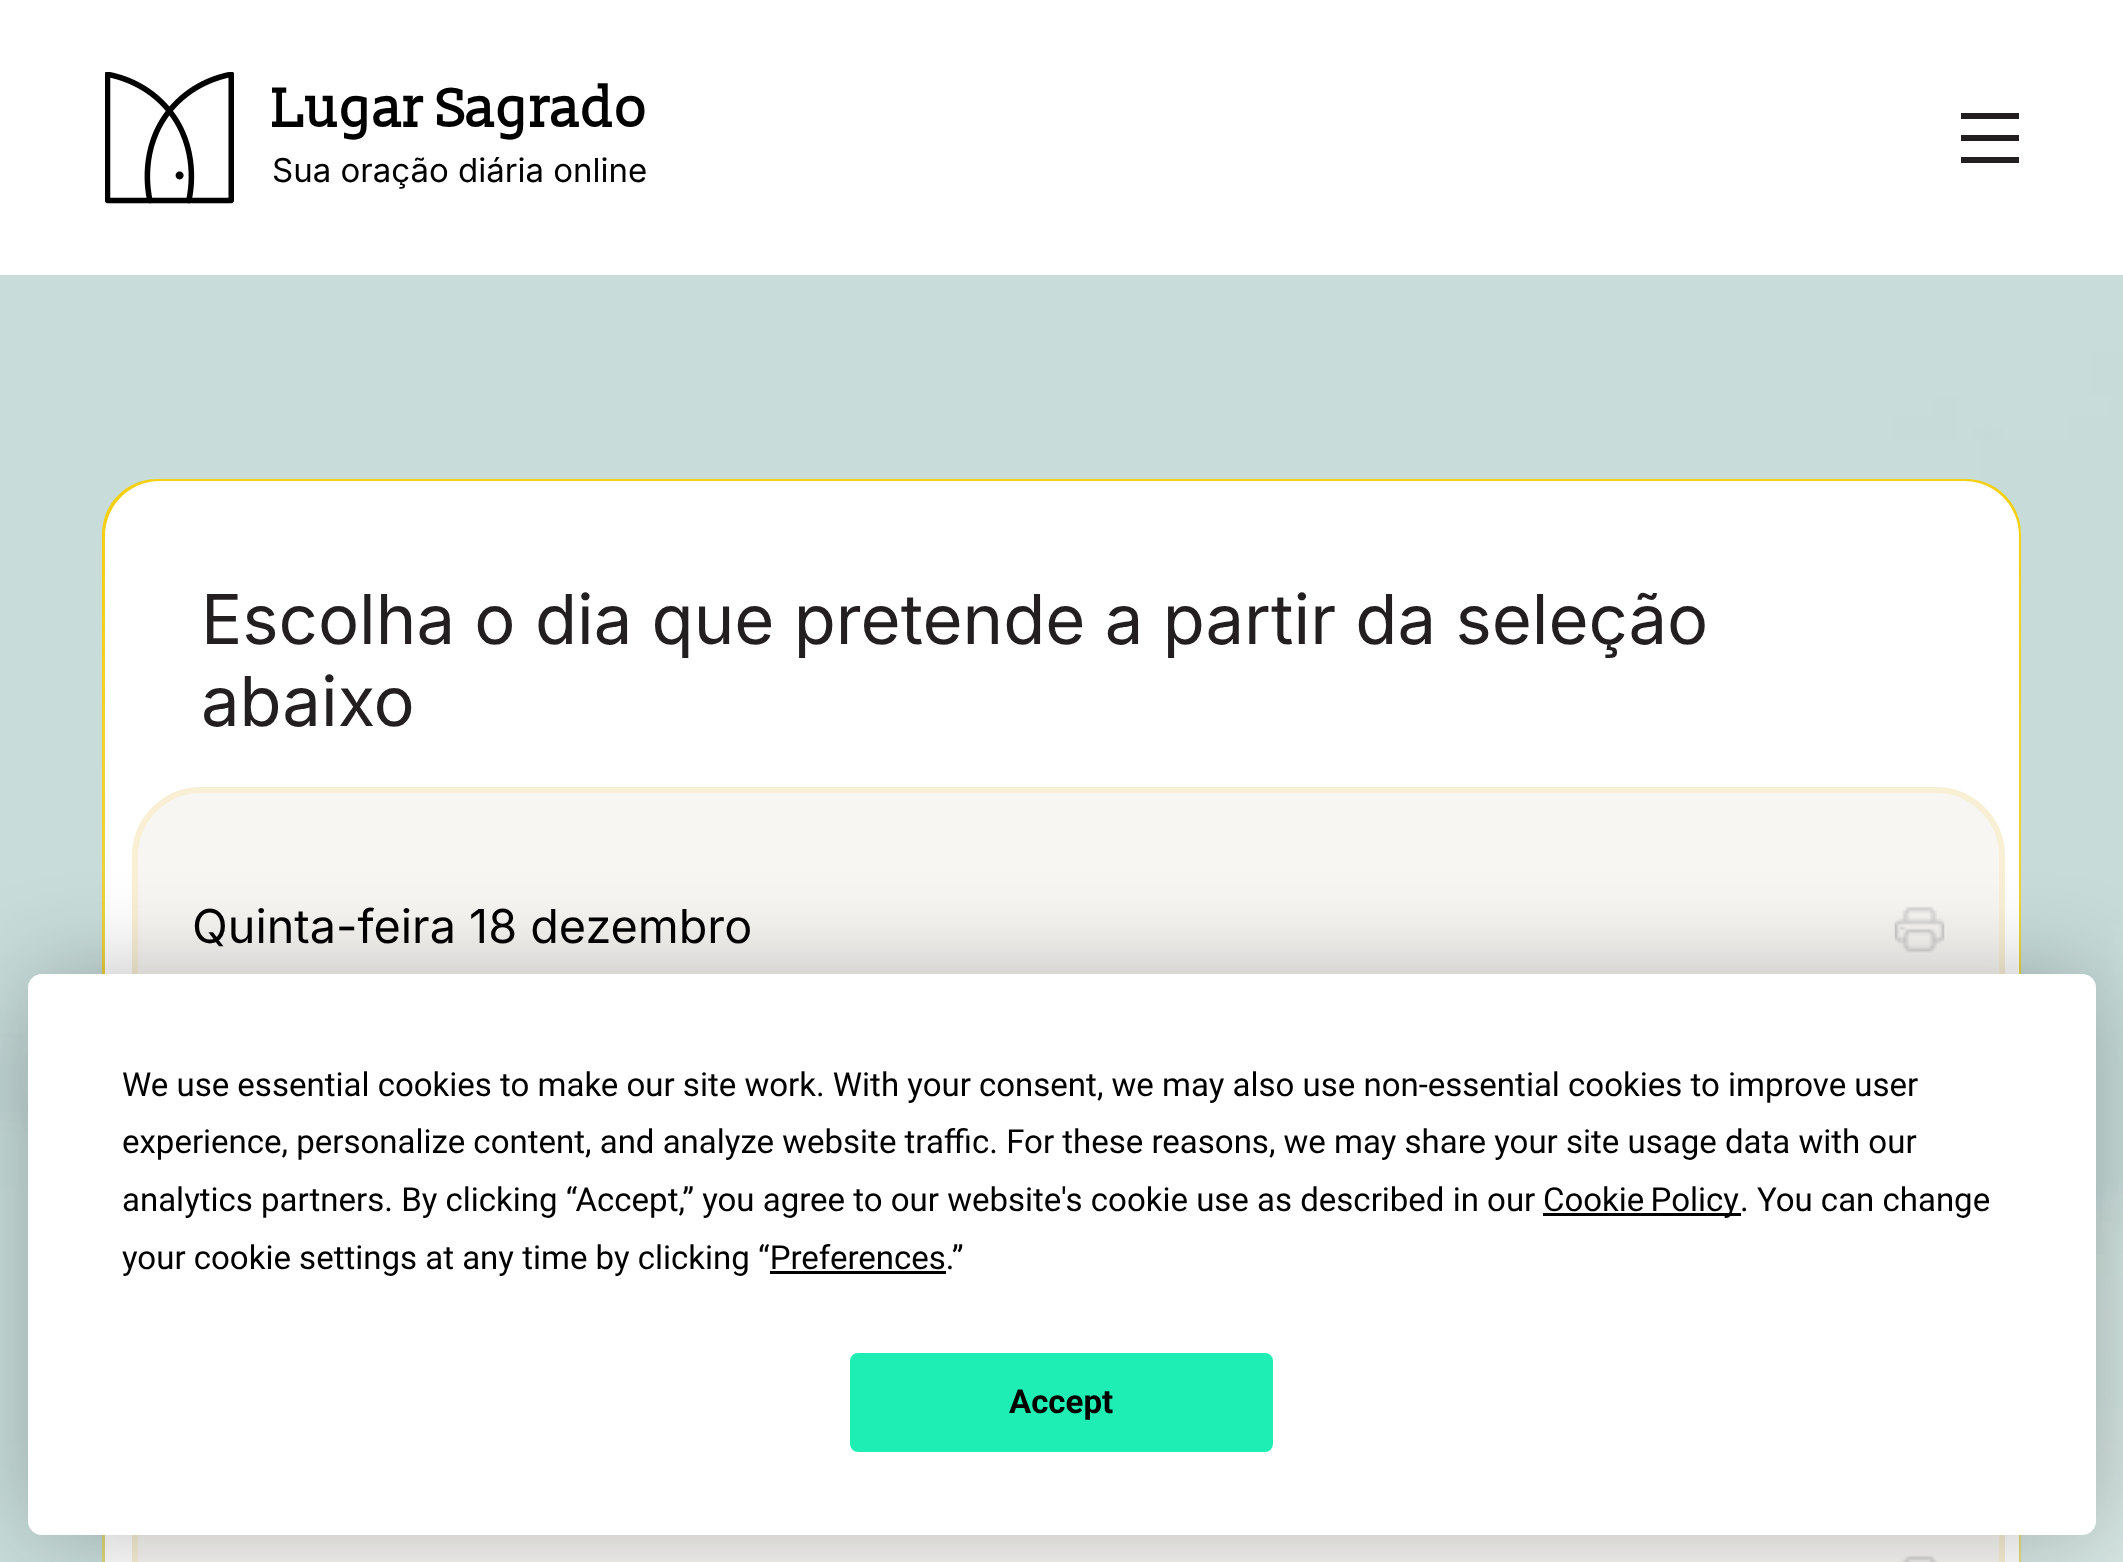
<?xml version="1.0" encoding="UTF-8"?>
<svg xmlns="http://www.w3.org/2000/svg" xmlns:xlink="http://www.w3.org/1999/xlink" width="2123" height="1562">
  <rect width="100%" height="100%" fill="#ffffff" />
  <image x="105" y="72" width="129" height="132" xlink:href="image1.png" />
  <rect x="1961" y="113" width="58" height="6" fill="#231f20" />
  <rect x="1961" y="135" width="58" height="6" fill="#231f20" />
  <rect x="1961" y="157" width="58" height="6" fill="#231f20" />
  <image x="0" y="275" width="2123" height="1287" xlink:href="image2.png" />
  <path d="M 160 481 h 1804 c 30.5 0 55 24.5 55 55 v 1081 h -1914 v -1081 c 0 -30.5 24.5 -55 55 -55 z" fill="#ffffff" />
  <rect x="132" y="787" width="1873" height="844" rx="69" fill="#f7f6f3" />
  <rect x="135" y="790" width="1867" height="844" rx="66" fill="none" stroke="#ffc107" stroke-opacity="0.13" stroke-width="6" />
  <image x="1894" y="906" width="51" height="47" xlink:href="image3.png" />
  <image x="1902" y="1555" width="35" height="7" xlink:href="image4.png" />
  <rect x="28" y="974" width="2068" height="561" rx="14" fill="#000000" fill-opacity="0.25" filter="blur(48px)" />
  <rect x="28" y="974" width="2068" height="561" rx="14" fill="#ffffff" />
  <rect x="1543" y="1213" width="198" height="3" fill="#000000" />
  <rect x="770" y="1271" width="176" height="3" fill="#000000" />
  <rect x="851.5" y="1354.5" width="420" height="96" rx="6.5" fill="#1feeb4" stroke="#1feeb4" stroke-width="3" />
  <text x="272" y="127" style="font-family: 'Slabo 13px'; font-size: 55px; font-weight: bold; fill: #000000">Lugar Sagrado</text>
  <text x="272" y="182" style="font-family: Inter; font-size: 33px; fill: #000000">Sua oração diária online</text>
  <text x="201" y="644" style="font-family: Inter; font-size: 68.75px; fill: #231f20">Escolha o dia que pretende a partir da seleção</text>
  <text x="201" y="726" style="font-family: Inter; font-size: 68.75px; fill: #231f20">abaixo</text>
  <text x="192" y="943" style="font-family: Inter; font-size: 46.75px; fill: #000000">Quinta-feira 18 dezembro</text>
  <text x="122" y="1096" style="font-family: Roboto; font-size: 33px; fill: #000000">We use essential cookies to make our site work. With your consent, we may also use non-essential cookies to improve user</text>
  <text x="122" y="1153" style="font-family: Roboto; font-size: 33px; fill: #000000">experience, personalize content, and analyze website traffic. For these reasons, we may share your site usage data with our</text>
  <text x="122" y="1211" style="font-family: Roboto; font-size: 33px; fill: #000000">analytics partners. By clicking “Accept,” you agree to our website's cookie use as described in our</text>
  <text x="1543" y="1211" word-spacing="-2" style="font-family: Roboto; font-size: 33px; fill: #000000">Cookie Policy</text>
  <text x="1740" y="1211" style="font-family: Roboto; font-size: 33px; fill: #000000">. You can change</text>
  <text x="122" y="1269" style="font-family: Roboto; font-size: 33px; fill: #000000">your cookie settings at any time by clicking “Preferences.”</text>
  <text x="1009" y="1413" style="font-family: Roboto; font-size: 33px; font-weight: bold; fill: #000000">Accept</text>
</svg>
